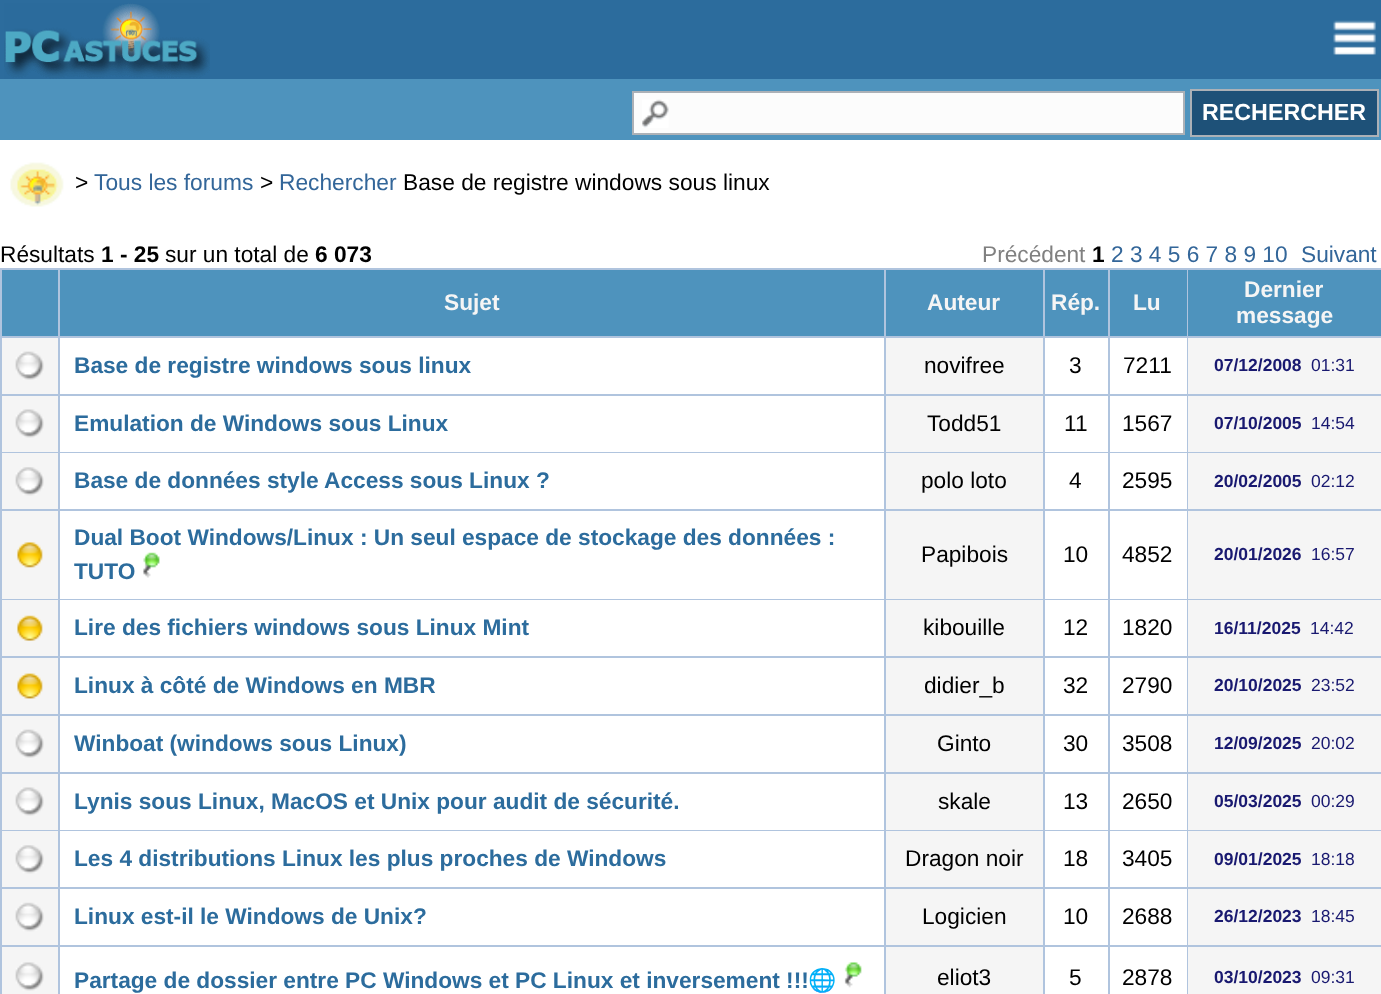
<?xml version="1.0" encoding="UTF-8"?>
<svg xmlns="http://www.w3.org/2000/svg" xmlns:xlink="http://www.w3.org/1999/xlink" width="1381" height="994">
  <rect width="100%" height="100%" fill="#ffffff" />
  <rect width="1381" height="79" fill="#2c6c9d" />
  <image x="4" y="3" width="206" height="76" xlink:href="image1.png" />
  <image x="1333" y="20" width="43" height="35" xlink:href="image2.png" />
  <rect y="79" width="1381" height="61" fill="#4e93bd" />
  <rect x="634" y="93" width="549" height="40" fill="#fcfcfc" />
  <image x="642" y="99" width="27" height="29" xlink:href="image3.png" />
  <rect x="633" y="92" width="551" height="42" fill="none" stroke="#acb1b7" stroke-width="2" />
  <rect x="1191" y="90" width="187" height="46" fill="#1e5178" stroke="#acb1b7" stroke-width="2" />
  <image x="10" y="162" width="54" height="45" xlink:href="image4.png" />
  <rect y="268" width="1381" height="726" fill="#b0c4de" />
  <rect x="2" y="270" width="56" height="66" fill="#4e93bd" />
  <rect x="60" y="270" width="824" height="66" fill="#4e93bd" />
  <rect x="886" y="270" width="157" height="66" fill="#4e93bd" />
  <rect x="1045" y="270" width="63" height="66" fill="#4e93bd" />
  <rect x="1110" y="270" width="77" height="66" fill="#4e93bd" />
  <rect x="1188" y="270" width="193" height="66" fill="#4e93bd" />
  <rect x="2" y="338" width="56" height="56" fill="#f5f5f5" />
  <image x="15" y="351" width="29" height="29" xlink:href="image5.png" />
  <rect x="60" y="338" width="824" height="56" fill="#ffffff" />
  <rect x="886" y="338" width="157" height="56" fill="#f5f5f5" />
  <rect x="1045" y="338" width="63" height="56" fill="#ffffff" />
  <rect x="1110" y="338" width="77" height="56" fill="#ffffff" />
  <rect x="1188" y="338" width="193" height="56" fill="#f5f5f5" />
  <rect x="2" y="396" width="56" height="56" fill="#f5f5f5" />
  <image x="15" y="409" width="29" height="29" xlink:href="image6.png" />
  <rect x="60" y="396" width="824" height="56" fill="#ffffff" />
  <rect x="886" y="396" width="157" height="56" fill="#f5f5f5" />
  <rect x="1045" y="396" width="63" height="56" fill="#ffffff" />
  <rect x="1110" y="396" width="77" height="56" fill="#ffffff" />
  <rect x="1188" y="396" width="193" height="56" fill="#f5f5f5" />
  <rect x="2" y="453" width="56" height="56" fill="#f5f5f5" />
  <image x="15" y="467" width="29" height="29" xlink:href="image7.png" />
  <rect x="60" y="453" width="824" height="56" fill="#ffffff" />
  <rect x="886" y="453" width="157" height="56" fill="#f5f5f5" />
  <rect x="1045" y="453" width="63" height="56" fill="#ffffff" />
  <rect x="1110" y="453" width="77" height="56" fill="#ffffff" />
  <rect x="1188" y="453" width="193" height="56" fill="#f5f5f5" />
  <rect x="2" y="511" width="56" height="88" fill="#f5f5f5" />
  <image x="17" y="542" width="26" height="26" xlink:href="image8.png" />
  <rect x="60" y="511" width="824" height="88" fill="#ffffff" />
  <image x="143" y="552" width="17" height="26" xlink:href="image9.png" />
  <rect x="886" y="511" width="157" height="88" fill="#f5f5f5" />
  <rect x="1045" y="511" width="63" height="88" fill="#ffffff" />
  <rect x="1110" y="511" width="77" height="88" fill="#ffffff" />
  <rect x="1188" y="511" width="193" height="88" fill="#f5f5f5" />
  <rect x="2" y="600" width="56" height="56" fill="#f5f5f5" />
  <image x="17" y="615" width="26" height="26" xlink:href="image10.png" />
  <rect x="60" y="600" width="824" height="56" fill="#ffffff" />
  <rect x="886" y="600" width="157" height="56" fill="#f5f5f5" />
  <rect x="1045" y="600" width="63" height="56" fill="#ffffff" />
  <rect x="1110" y="600" width="77" height="56" fill="#ffffff" />
  <rect x="1188" y="600" width="193" height="56" fill="#f5f5f5" />
  <rect x="2" y="658" width="56" height="56" fill="#f5f5f5" />
  <image x="17" y="673" width="26" height="26" xlink:href="image11.png" />
  <rect x="60" y="658" width="824" height="56" fill="#ffffff" />
  <rect x="886" y="658" width="157" height="56" fill="#f5f5f5" />
  <rect x="1045" y="658" width="63" height="56" fill="#ffffff" />
  <rect x="1110" y="658" width="77" height="56" fill="#ffffff" />
  <rect x="1188" y="658" width="193" height="56" fill="#f5f5f5" />
  <rect x="2" y="716" width="56" height="56" fill="#f5f5f5" />
  <image x="15" y="729" width="29" height="29" xlink:href="image5.png" />
  <rect x="60" y="716" width="824" height="56" fill="#ffffff" />
  <rect x="886" y="716" width="157" height="56" fill="#f5f5f5" />
  <rect x="1045" y="716" width="63" height="56" fill="#ffffff" />
  <rect x="1110" y="716" width="77" height="56" fill="#ffffff" />
  <rect x="1188" y="716" width="193" height="56" fill="#f5f5f5" />
  <rect x="2" y="774" width="56" height="56" fill="#f5f5f5" />
  <image x="15" y="787" width="29" height="29" xlink:href="image6.png" />
  <rect x="60" y="774" width="824" height="56" fill="#ffffff" />
  <rect x="886" y="774" width="157" height="56" fill="#f5f5f5" />
  <rect x="1045" y="774" width="63" height="56" fill="#ffffff" />
  <rect x="1110" y="774" width="77" height="56" fill="#ffffff" />
  <rect x="1188" y="774" width="193" height="56" fill="#f5f5f5" />
  <rect x="2" y="831" width="56" height="56" fill="#f5f5f5" />
  <image x="15" y="845" width="29" height="29" xlink:href="image7.png" />
  <rect x="60" y="831" width="824" height="56" fill="#ffffff" />
  <rect x="886" y="831" width="157" height="56" fill="#f5f5f5" />
  <rect x="1045" y="831" width="63" height="56" fill="#ffffff" />
  <rect x="1110" y="831" width="77" height="56" fill="#ffffff" />
  <rect x="1188" y="831" width="193" height="56" fill="#f5f5f5" />
  <rect x="2" y="889" width="56" height="56" fill="#f5f5f5" />
  <image x="15" y="902" width="29" height="30" xlink:href="image12.png" />
  <rect x="60" y="889" width="824" height="56" fill="#ffffff" />
  <rect x="886" y="889" width="157" height="56" fill="#f5f5f5" />
  <rect x="1045" y="889" width="63" height="56" fill="#ffffff" />
  <rect x="1110" y="889" width="77" height="56" fill="#ffffff" />
  <rect x="1188" y="889" width="193" height="56" fill="#f5f5f5" />
  <rect x="2" y="947" width="56" height="47" fill="#f5f5f5" />
  <image x="15" y="962" width="29" height="29" xlink:href="image6.png" />
  <rect x="60" y="947" width="824" height="47" fill="#ffffff" />
  <image x="844" y="962" width="18" height="26" xlink:href="image13.png" />
  <rect x="886" y="947" width="157" height="47" fill="#f5f5f5" />
  <rect x="1045" y="947" width="63" height="47" fill="#ffffff" />
  <rect x="1110" y="947" width="77" height="47" fill="#ffffff" />
  <rect x="1188" y="947" width="193" height="47" fill="#f5f5f5" />
  <text x="1202" y="120" style="font-family: Liberation Sans; font-size: 23.25px; font-weight: bold; fill: #ffffff">RECHERCHER</text>
  <text x="75" y="190" style="font-family: Liberation Sans; font-size: 22.75px; fill: #000000">&gt;</text>
  <text x="94" y="190" style="font-family: Liberation Sans; font-size: 22.75px; fill: #336699">Tous les forums</text>
  <text x="260" y="190" style="font-family: Liberation Sans; font-size: 22.75px; fill: #000000">&gt;</text>
  <text x="279" y="190" style="font-family: Liberation Sans; font-size: 22.75px; fill: #336699">Rechercher</text>
  <text x="403" y="190" style="font-family: Liberation Sans; font-size: 22.75px; fill: #000000">Base de registre windows sous linux</text>
  <text x="0" y="262" style="font-family: Liberation Sans; font-size: 22.7px; fill: #000000">Résultats</text>
  <text x="101" y="262" style="font-family: Liberation Sans; font-size: 22.7px; font-weight: bold; fill: #000000">1 - 25</text>
  <text x="165" y="262" style="font-family: Liberation Sans; font-size: 22.7px; fill: #000000">sur un total de</text>
  <text x="315" y="262" style="font-family: Liberation Sans; font-size: 22.7px; font-weight: bold; fill: #000000">6 073</text>
  <text x="982" y="262" style="font-family: Liberation Sans; font-size: 22.7px; fill: #808080">Précédent</text>
  <text x="1092" y="262" style="font-family: Liberation Sans; font-size: 22.7px; font-weight: bold; fill: #000000">1</text>
  <text x="1111" y="262" style="font-family: Liberation Sans; font-size: 22.7px; fill: #336699">2 3 4 5 6 7 8 9 10</text>
  <text x="1301" y="262" style="font-family: Liberation Sans; font-size: 22.7px; fill: #336699">Suivant</text>
  <text x="444" y="310" style="font-family: Liberation Sans; font-size: 22.7px; font-weight: bold; fill: #f5f5f5">Sujet</text>
  <text x="927" y="310" style="font-family: Liberation Sans; font-size: 22.7px; font-weight: bold; fill: #f5f5f5">Auteur</text>
  <text x="1051" y="310" style="font-family: Liberation Sans; font-size: 22.7px; font-weight: bold; fill: #f5f5f5">Rép.</text>
  <text x="1133" y="310" style="font-family: Liberation Sans; font-size: 22.7px; font-weight: bold; fill: #f5f5f5">Lu</text>
  <text x="1244" y="297" style="font-family: Liberation Sans; font-size: 22.7px; font-weight: bold; fill: #f5f5f5">Dernier</text>
  <text x="1236" y="323" style="font-family: Liberation Sans; font-size: 22.7px; font-weight: bold; fill: #f5f5f5">message</text>
  <text x="74" y="373" style="font-family: Liberation Sans; font-size: 22.7px; font-weight: bold; fill: #2c6c9d">Base de registre windows sous linux</text>
  <text x="924" y="373" style="font-family: Liberation Sans; font-size: 22.7px; fill: #000000">novifree</text>
  <text x="1069" y="373" style="font-family: Liberation Sans; font-size: 22.7px; fill: #000000">3</text>
  <text x="1123" y="373" style="font-family: Liberation Sans; font-size: 22.7px; fill: #000000">7211</text>
  <text x="1214" y="371" style="font-family: Liberation Sans; font-size: 17.5px; font-weight: bold; fill: #191970">07/12/2008</text>
  <text x="1311" y="371" style="font-family: Liberation Sans; font-size: 17.5px; fill: #191970">01:31</text>
  <text x="74" y="431" style="font-family: Liberation Sans; font-size: 22.7px; font-weight: bold; fill: #2c6c9d">Emulation de Windows sous Linux</text>
  <text x="927" y="431" style="font-family: Liberation Sans; font-size: 22.7px; fill: #000000">Todd51</text>
  <text x="1064" y="431" style="font-family: Liberation Sans; font-size: 22.7px; fill: #000000">11</text>
  <text x="1122" y="431" style="font-family: Liberation Sans; font-size: 22.7px; fill: #000000">1567</text>
  <text x="1214" y="429" style="font-family: Liberation Sans; font-size: 17.5px; font-weight: bold; fill: #191970">07/10/2005</text>
  <text x="1311" y="429" style="font-family: Liberation Sans; font-size: 17.5px; fill: #191970">14:54</text>
  <text x="74" y="488" style="font-family: Liberation Sans; font-size: 22.7px; font-weight: bold; fill: #2c6c9d">Base de données style Access sous Linux ?</text>
  <text x="921" y="488" style="font-family: Liberation Sans; font-size: 22.7px; fill: #000000">polo loto</text>
  <text x="1069" y="488" style="font-family: Liberation Sans; font-size: 22.7px; fill: #000000">4</text>
  <text x="1122" y="488" style="font-family: Liberation Sans; font-size: 22.7px; fill: #000000">2595</text>
  <text x="1214" y="487" style="font-family: Liberation Sans; font-size: 17.5px; font-weight: bold; fill: #191970">20/02/2005</text>
  <text x="1311" y="487" style="font-family: Liberation Sans; font-size: 17.5px; fill: #191970">02:12</text>
  <text x="74" y="545" style="font-family: Liberation Sans; font-size: 22.7px; font-weight: bold; fill: #2c6c9d">Dual Boot Windows/Linux : Un seul espace de stockage des données :</text>
  <text x="74" y="579" style="font-family: Liberation Sans; font-size: 22.7px; font-weight: bold; fill: #2c6c9d">TUTO</text>
  <text x="921" y="562" style="font-family: Liberation Sans; font-size: 22.7px; fill: #000000">Papibois</text>
  <text x="1063" y="562" style="font-family: Liberation Sans; font-size: 22.7px; fill: #000000">10</text>
  <text x="1122" y="562" style="font-family: Liberation Sans; font-size: 22.7px; fill: #000000">4852</text>
  <text x="1214" y="560" style="font-family: Liberation Sans; font-size: 17.5px; font-weight: bold; fill: #191970">20/01/2026</text>
  <text x="1311" y="560" style="font-family: Liberation Sans; font-size: 17.5px; fill: #191970">16:57</text>
  <text x="74" y="635" style="font-family: Liberation Sans; font-size: 22.7px; font-weight: bold; fill: #2c6c9d">Lire des fichiers windows sous Linux Mint</text>
  <text x="923" y="635" style="font-family: Liberation Sans; font-size: 22.7px; fill: #000000">kibouille</text>
  <text x="1063" y="635" style="font-family: Liberation Sans; font-size: 22.7px; fill: #000000">12</text>
  <text x="1122" y="635" style="font-family: Liberation Sans; font-size: 22.7px; fill: #000000">1820</text>
  <text x="1214" y="634" style="font-family: Liberation Sans; font-size: 17.5px; font-weight: bold; fill: #191970">16/11/2025</text>
  <text x="1310" y="634" style="font-family: Liberation Sans; font-size: 17.5px; fill: #191970">14:42</text>
  <text x="74" y="693" style="font-family: Liberation Sans; font-size: 22.7px; font-weight: bold; fill: #2c6c9d">Linux à côté de Windows en MBR</text>
  <text x="924" y="693" style="font-family: Liberation Sans; font-size: 22.7px; fill: #000000">didier_b</text>
  <text x="1063" y="693" style="font-family: Liberation Sans; font-size: 22.7px; fill: #000000">32</text>
  <text x="1122" y="693" style="font-family: Liberation Sans; font-size: 22.7px; fill: #000000">2790</text>
  <text x="1214" y="691" style="font-family: Liberation Sans; font-size: 17.5px; font-weight: bold; fill: #191970">20/10/2025</text>
  <text x="1311" y="691" style="font-family: Liberation Sans; font-size: 17.5px; fill: #191970">23:52</text>
  <text x="74" y="751" style="font-family: Liberation Sans; font-size: 22.7px; font-weight: bold; fill: #2c6c9d">Winboat (windows sous Linux)</text>
  <text x="937" y="751" style="font-family: Liberation Sans; font-size: 22.7px; fill: #000000">Ginto</text>
  <text x="1063" y="751" style="font-family: Liberation Sans; font-size: 22.7px; fill: #000000">30</text>
  <text x="1122" y="751" style="font-family: Liberation Sans; font-size: 22.7px; fill: #000000">3508</text>
  <text x="1214" y="749" style="font-family: Liberation Sans; font-size: 17.5px; font-weight: bold; fill: #191970">12/09/2025</text>
  <text x="1311" y="749" style="font-family: Liberation Sans; font-size: 17.5px; fill: #191970">20:02</text>
  <text x="74" y="809" style="font-family: Liberation Sans; font-size: 22.7px; font-weight: bold; fill: #2c6c9d">Lynis sous Linux, MacOS et Unix pour audit de sécurité.</text>
  <text x="938" y="809" style="font-family: Liberation Sans; font-size: 22.7px; fill: #000000">skale</text>
  <text x="1063" y="809" style="font-family: Liberation Sans; font-size: 22.7px; fill: #000000">13</text>
  <text x="1122" y="809" style="font-family: Liberation Sans; font-size: 22.7px; fill: #000000">2650</text>
  <text x="1214" y="807" style="font-family: Liberation Sans; font-size: 17.5px; font-weight: bold; fill: #191970">05/03/2025</text>
  <text x="1311" y="807" style="font-family: Liberation Sans; font-size: 17.5px; fill: #191970">00:29</text>
  <text x="74" y="866" style="font-family: Liberation Sans; font-size: 22.7px; font-weight: bold; fill: #2c6c9d">Les 4 distributions Linux les plus proches de Windows</text>
  <text x="905" y="866" style="font-family: Liberation Sans; font-size: 22.7px; fill: #000000">Dragon noir</text>
  <text x="1063" y="866" style="font-family: Liberation Sans; font-size: 22.7px; fill: #000000">18</text>
  <text x="1122" y="866" style="font-family: Liberation Sans; font-size: 22.7px; fill: #000000">3405</text>
  <text x="1214" y="865" style="font-family: Liberation Sans; font-size: 17.5px; font-weight: bold; fill: #191970">09/01/2025</text>
  <text x="1311" y="865" style="font-family: Liberation Sans; font-size: 17.5px; fill: #191970">18:18</text>
  <text x="74" y="924" style="font-family: Liberation Sans; font-size: 22.7px; font-weight: bold; fill: #2c6c9d">Linux est-il le Windows de Unix?</text>
  <text x="922" y="924" style="font-family: Liberation Sans; font-size: 22.7px; fill: #000000">Logicien</text>
  <text x="1063" y="924" style="font-family: Liberation Sans; font-size: 22.7px; fill: #000000">10</text>
  <text x="1122" y="924" style="font-family: Liberation Sans; font-size: 22.7px; fill: #000000">2688</text>
  <text x="1214" y="922" style="font-family: Liberation Sans; font-size: 17.5px; font-weight: bold; fill: #191970">26/12/2023</text>
  <text x="1311" y="922" style="font-family: Liberation Sans; font-size: 17.5px; fill: #191970">18:45</text>
  <text x="74" y="988" style="font-family: Liberation Sans; font-size: 22.7px; font-weight: bold; fill: #2c6c9d">Partage de dossier entre PC Windows et PC Linux et inversement !!!</text>
  <text x="808" y="988" style="font-family: Noto Color Emoji; font-size: 22.7px; font-weight: bold; fill: #2c6c9d">🌐</text>
  <text x="937" y="985" style="font-family: Liberation Sans; font-size: 22.7px; fill: #000000">eliot3</text>
  <text x="1069" y="985" style="font-family: Liberation Sans; font-size: 22.7px; fill: #000000">5</text>
  <text x="1122" y="985" style="font-family: Liberation Sans; font-size: 22.7px; fill: #000000">2878</text>
  <text x="1214" y="983" style="font-family: Liberation Sans; font-size: 17.5px; font-weight: bold; fill: #191970">03/10/2023</text>
  <text x="1311" y="983" style="font-family: Liberation Sans; font-size: 17.5px; fill: #191970">09:31</text>
</svg>
